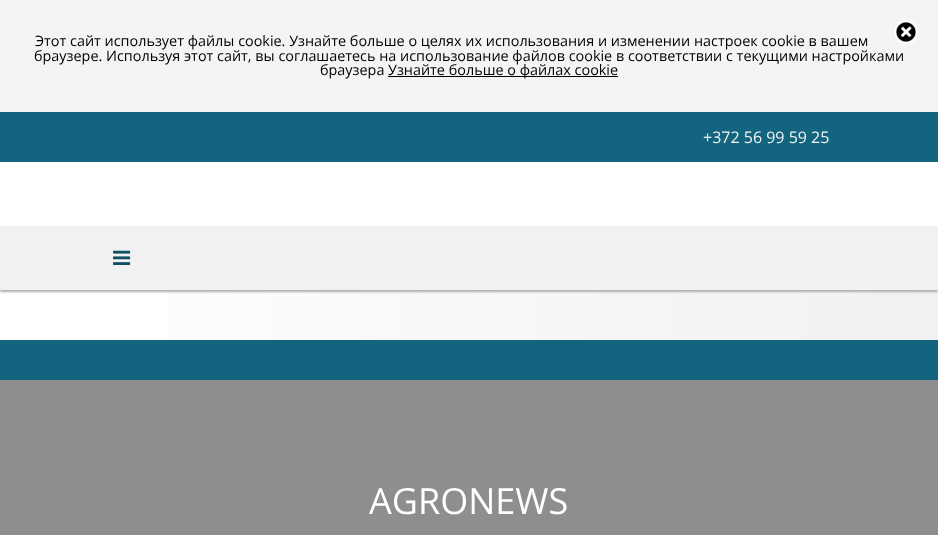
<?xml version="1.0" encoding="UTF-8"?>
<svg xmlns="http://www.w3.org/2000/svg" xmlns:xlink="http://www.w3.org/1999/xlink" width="938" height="535">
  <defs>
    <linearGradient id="g1" gradientUnits="userSpaceOnUse" x1="0" y1="315" x2="938" y2="315"><stop offset="0" stop-color="#ffffff" /><stop offset="1" stop-color="#f1f1f1" /></linearGradient>
    <clipPath id="clip1"><rect x="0" y="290" width="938" height="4" /></clipPath>
  </defs>
  <rect width="100%" height="100%" fill="#ffffff" />
  <rect width="938" height="112" fill="#f4f4f4" />
  <image x="894" y="20" width="24" height="24" xlink:href="image1.png" />
  <rect x="388" y="76" width="230" height="1" fill="#000000" />
  <rect y="112" width="938" height="50" fill="#13647f" />
  <rect x="168" y="290" width="770" height="50" fill="url(#g1)" />
  <g clip-path="url(#clip1)">
    <rect y="164" width="938" height="128" fill="#b0afaf" filter="blur(1px)" />
  </g>
  <rect y="226" width="938" height="64" fill="#f1f1f1" />
  <image x="113" y="250" width="18" height="15" xlink:href="image2.png" />
  <rect y="340" width="938" height="40" fill="#13647f" />
  <rect y="380" width="938" height="155" fill="#8e8e8e" />
  <text x="35" y="46" style="font-family: Open Sans; font-size: 14.4px; fill: #000000">Этот сайт использует файлы cookie. Узнайте больше о целях их использования и изменении настроек cookie в вашем</text>
  <text x="34" y="61" style="font-family: Open Sans; font-size: 14.4px; fill: #000000">браузере. Используя этот сайт, вы соглашаетесь на использование файлов cookie в соответствии с текущими настройками</text>
  <text x="320" y="75" style="font-family: Open Sans; font-size: 14.4px; fill: #000000">браузера</text>
  <text x="388" y="75" style="font-family: Open Sans; font-size: 14.4px; fill: #000000">Узнайте больше о файлах cookie</text>
  <text x="703" y="143" style="font-family: Open Sans; font-size: 16px; fill: #f1f1f1">+372 56 99 59 25</text>
  <text x="369" y="514" style="font-family: Open Sans; font-size: 36px; fill: #ffffff">AGRONEWS</text>
</svg>
